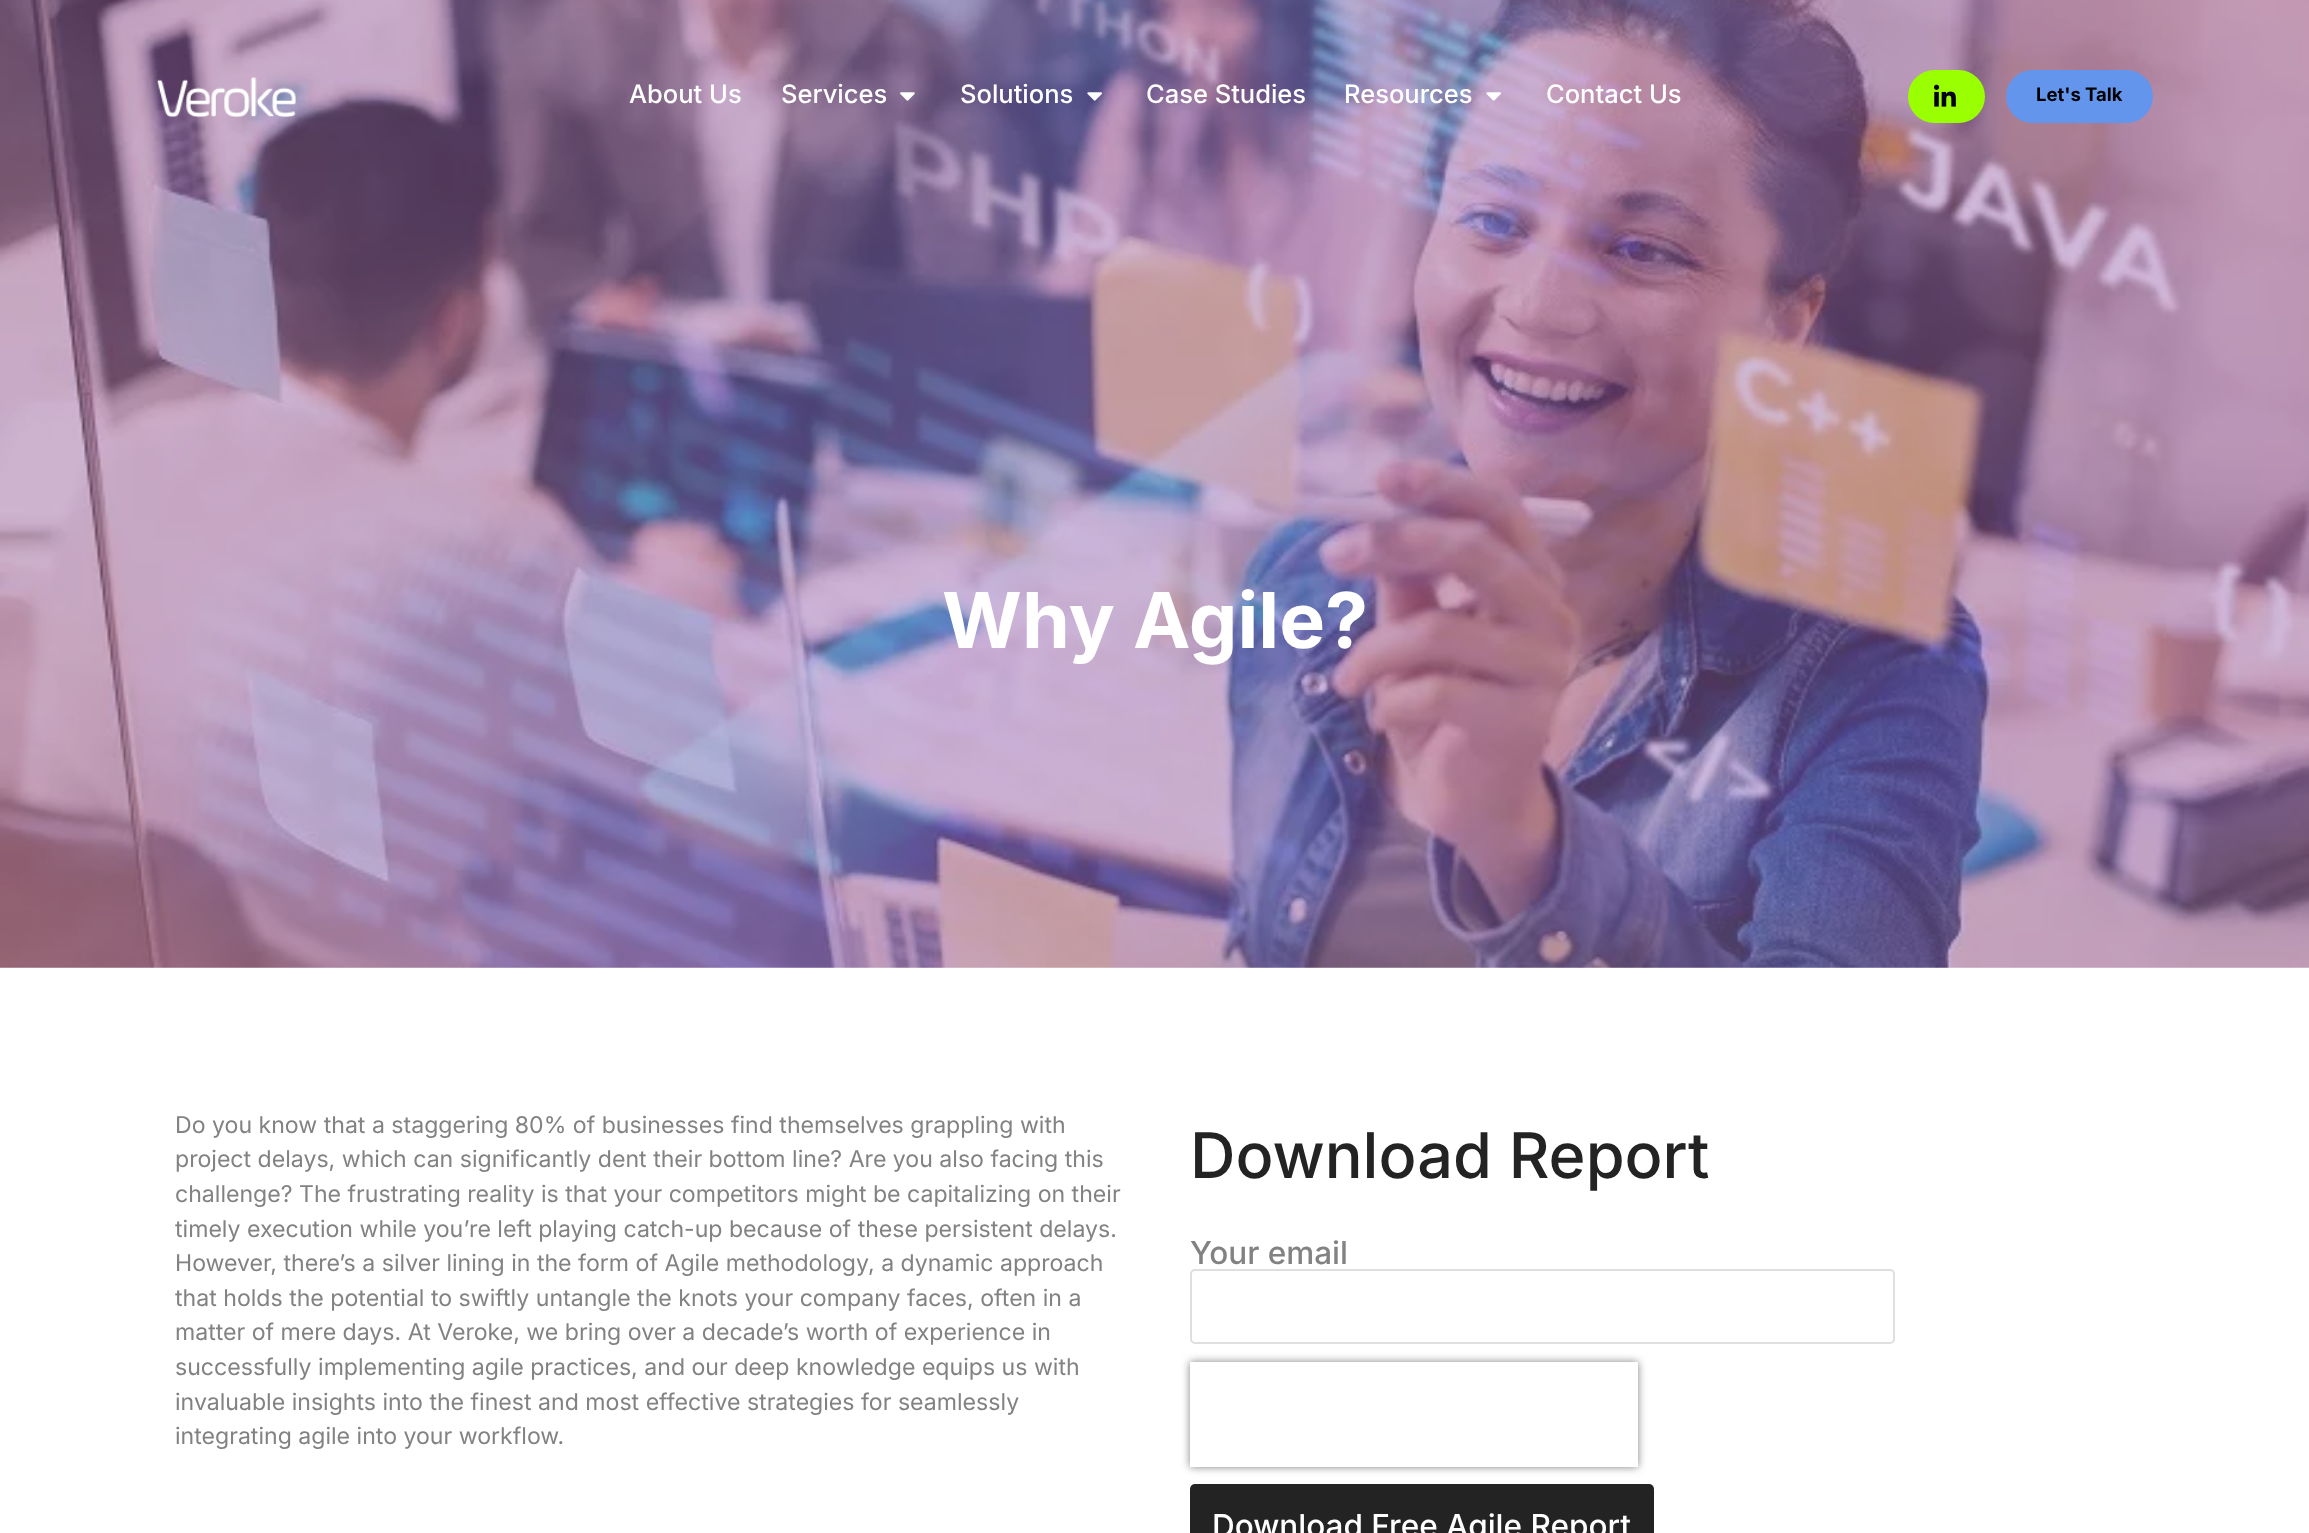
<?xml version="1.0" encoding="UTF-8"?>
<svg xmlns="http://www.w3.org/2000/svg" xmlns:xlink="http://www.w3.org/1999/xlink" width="2309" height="1533">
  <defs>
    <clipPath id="clip1"><path d="M 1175 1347 h 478 v 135 h -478 z m 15 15 h 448 v 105 h -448 z" clip-rule="evenodd" /></clipPath>
  </defs>
  <rect width="100%" height="100%" fill="#ffffff" />
  <image x="0" y="0" width="2309" height="968" xlink:href="image6.png" />
  <image x="157" y="77" width="139" height="41" xlink:href="image1.png" />
  <image x="900" y="92" width="15" height="9" xlink:href="image2.png" />
  <image x="1087" y="92" width="15" height="9" xlink:href="image3.png" />
  <image x="1486" y="92" width="15" height="9" xlink:href="image4.png" />
  <rect x="1908" y="70" width="77" height="53" rx="26.5" fill="#9aff00" />
  <image x="1934" y="84" width="22" height="23" xlink:href="image5.png" />
  <rect x="2006" y="70" width="147" height="53" rx="26.5" fill="#6495ed" />
  <rect x="1191" y="1270" width="703" height="73" rx="4" fill="none" stroke="#dfdfdf" stroke-width="2" />
  <g clip-path="url(#clip1)">
    <rect x="1190" y="1362" width="448" height="105" fill="#808080" filter="blur(4.5px)" />
  </g>
  <rect x="1190" y="1484" width="464" height="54" rx="5" fill="#232323" />
  <text x="629" y="103" style="font-family: Inter; font-size: 25.5px; font-weight: 500; fill: #ffffff">About Us</text>
  <text x="781" y="103" style="font-family: Inter; font-size: 25.5px; font-weight: 500; fill: #ffffff">Services</text>
  <text x="960" y="103" style="font-family: Inter; font-size: 25.5px; font-weight: 500; fill: #ffffff">Solutions</text>
  <text x="1146" y="103" style="font-family: Inter; font-size: 25.5px; font-weight: 500; fill: #ffffff">Case Studies</text>
  <text x="1344" y="103" style="font-family: Inter; font-size: 25.5px; font-weight: 500; fill: #ffffff">Resources</text>
  <text x="1546" y="103" style="font-family: Inter; font-size: 25.5px; font-weight: 500; fill: #ffffff">Contact Us</text>
  <text x="2036" y="101" style="font-family: Inter; font-size: 18.5px; font-weight: bold; fill: #000000">Let's Talk</text>
  <text x="942" y="648" style="font-family: Inter; font-size: 77px; font-weight: bold; fill: #ffffff">Why Agile?</text>
  <text x="175" y="1133" style="font-family: Inter; font-size: 23.1px; fill: #828282">Do you know that a staggering 80% of businesses find themselves grappling with</text>
  <text x="175" y="1167" style="font-family: Inter; font-size: 23.1px; fill: #828282">project delays, which can significantly dent their bottom line? Are you also facing this</text>
  <text x="175" y="1202" style="font-family: Inter; font-size: 23.1px; fill: #828282">challenge? The frustrating reality is that your competitors might be capitalizing on their</text>
  <text x="175" y="1237" style="font-family: Inter; font-size: 23.1px; fill: #828282">timely execution while you’re left playing catch-up because of these persistent delays.</text>
  <text x="175" y="1271" style="font-family: Inter; font-size: 23.1px; fill: #828282">However, there’s a silver lining in the form of Agile methodology, a dynamic approach</text>
  <text x="175" y="1306" style="font-family: Inter; font-size: 23.1px; fill: #828282">that holds the potential to swiftly untangle the knots your company faces, often in a</text>
  <text x="175" y="1340" style="font-family: Inter; font-size: 23.1px; fill: #828282">matter of mere days. At Veroke, we bring over a decade’s worth of experience in</text>
  <text x="175" y="1375" style="font-family: Inter; font-size: 23.1px; fill: #828282">successfully implementing agile practices, and our deep knowledge equips us with</text>
  <text x="175" y="1410" style="font-family: Inter; font-size: 23.1px; fill: #828282">invaluable insights into the finest and most effective strategies for seamlessly</text>
  <text x="175" y="1444" style="font-family: Inter; font-size: 23.1px; fill: #828282">integrating agile into your workflow.</text>
  <text x="1190" y="1178" style="font-family: Inter; font-size: 63px; font-weight: 500; fill: #232323">Download Report</text>
  <text x="1190" y="1264" style="font-family: Inter; font-size: 31.5px; font-weight: 500; fill: #828282">Your email</text>
  <text x="1212" y="1537" style="font-family: Inter; font-size: 31.5px; font-weight: 500; fill: #ffffff">Download Free Agile Report</text>
</svg>
